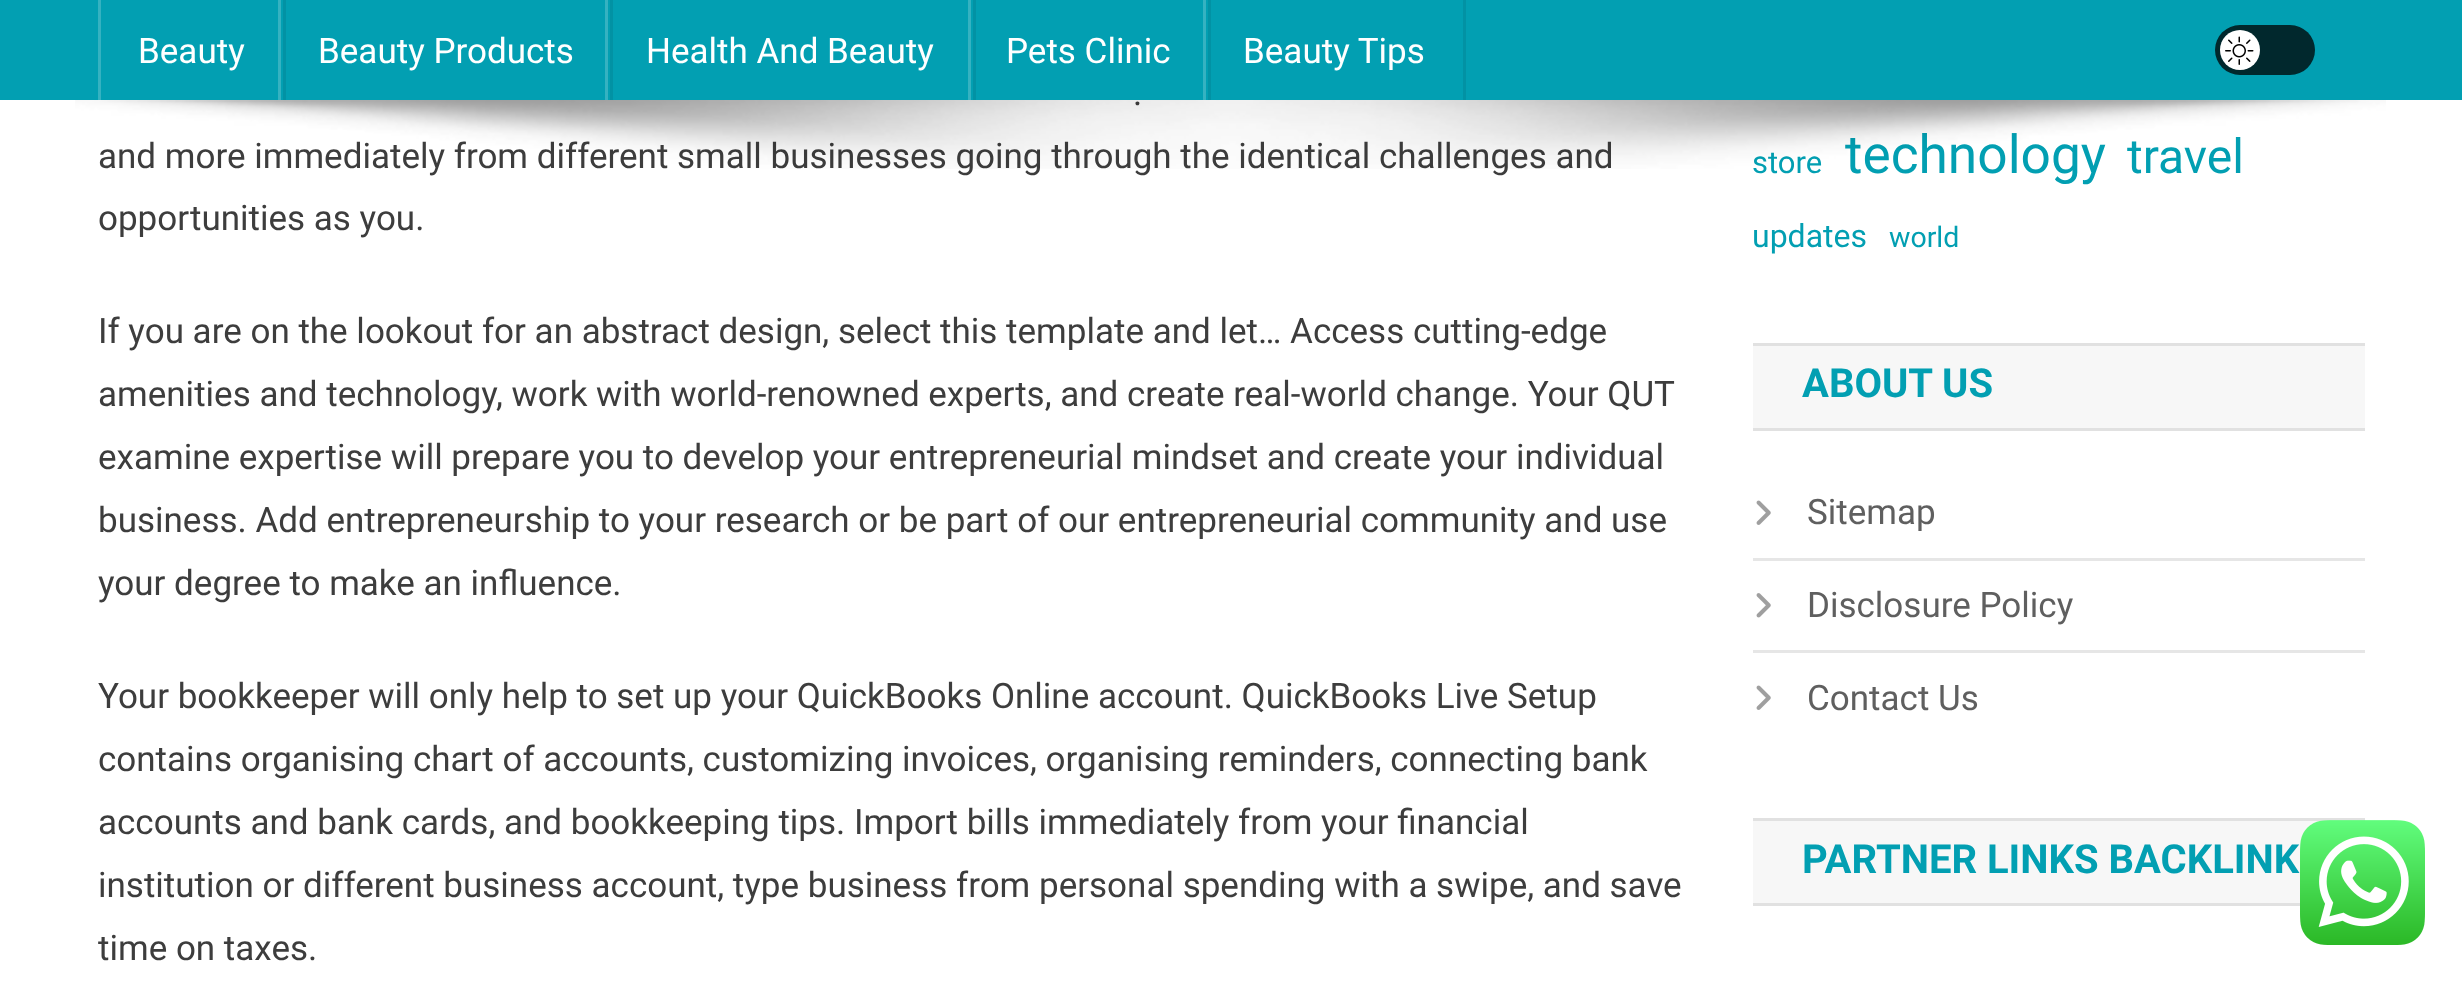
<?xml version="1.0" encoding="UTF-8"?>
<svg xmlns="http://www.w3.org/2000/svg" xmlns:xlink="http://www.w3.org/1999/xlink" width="2462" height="982">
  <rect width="100%" height="100%" fill="#ffffff" />
  <rect width="2462" height="100" fill="#029fb2" />
  <rect x="283" width="3" height="100" fill="#0292a4" />
  <rect x="98" width="3" height="100" fill="#35b2c1" />
  <rect x="610" width="3" height="100" fill="#0292a4" />
  <rect x="278" width="3" height="100" fill="#35b2c1" />
  <rect x="973" width="3" height="100" fill="#0292a4" />
  <rect x="605" width="3" height="100" fill="#35b2c1" />
  <rect x="1208" width="3" height="100" fill="#0292a4" />
  <rect x="968" width="3" height="100" fill="#35b2c1" />
  <rect x="1463" width="3" height="100" fill="#0292a4" />
  <rect x="1203" width="3" height="100" fill="#35b2c1" />
  <rect x="2215" y="25" width="100" height="50" rx="25" fill="#01282d" />
  <circle cx="2240" cy="50" r="20" fill="#ffffff" />
  <image x="2225" y="36" width="29" height="29" xlink:href="image1.png" />
  <rect x="1753" y="346" width="612" height="82" fill="#f7f7f7" />
  <rect x="1753" y="343" width="612" height="3" fill="#e1e1e1" />
  <rect x="1753" y="428" width="612" height="3" fill="#e1e1e1" />
  <rect x="1753" y="558" width="612" height="3" fill="#e6e6e6" />
  <image x="1756" y="500" width="15" height="25" xlink:href="image3.png" />
  <rect x="1753" y="650" width="612" height="3" fill="#e6e6e6" />
  <image x="1756" y="593" width="15" height="25" xlink:href="image4.png" />
  <image x="1756" y="685" width="15" height="25" xlink:href="image3.png" />
  <rect x="1753" y="821" width="567" height="82" fill="#f7f7f7" />
  <rect x="1753" y="818" width="612" height="3" fill="#e1e1e1" />
  <rect x="1753" y="903" width="547" height="3" fill="#e1e1e1" />
  <image x="2300" y="820" width="125" height="125" xlink:href="image5.png" />
  <text x="138" y="63" style="font-family: Roboto; font-size: 35px; fill: #ffffff">Beauty</text>
  <text x="318" y="63" style="font-family: Roboto; font-size: 35px; fill: #ffffff">Beauty Products</text>
  <text x="646" y="63" style="font-family: Roboto; font-size: 35px; fill: #ffffff">Health And Beauty</text>
  <text x="1006" y="63" style="font-family: Roboto; font-size: 35px; fill: #ffffff">Pets Clinic</text>
  <text x="1243" y="63" style="font-family: Roboto; font-size: 35px; fill: #ffffff">Beauty Tips</text>
  <text x="1133" y="105" style="font-family: Roboto; font-size: 35px; fill: #3d3d3d">.</text>
  <text x="98" y="168" style="font-family: Roboto; font-size: 35px; fill: #3d3d3d">and more immediately from different small businesses going through the identical challenges and</text>
  <text x="98" y="230" style="font-family: Roboto; font-size: 35px; fill: #3d3d3d">opportunities as you.</text>
  <text x="98" y="343" style="font-family: Roboto; font-size: 35px; fill: #3d3d3d">If you are on the lookout for an abstract design, select this template and let… Access cutting-edge</text>
  <text x="98" y="406" style="font-family: Roboto; font-size: 35px; fill: #3d3d3d">amenities and technology, work with world-renowned experts, and create real-world change. Your QUT</text>
  <text x="98" y="469" style="font-family: Roboto; font-size: 35px; fill: #3d3d3d">examine expertise will prepare you to develop your entrepreneurial mindset and create your individual</text>
  <text x="98" y="532" style="font-family: Roboto; font-size: 35px; fill: #3d3d3d">business. Add entrepreneurship to your research or be part of our entrepreneurial community and use</text>
  <text x="98" y="595" style="font-family: Roboto; font-size: 35px; fill: #3d3d3d">your degree to make an influence.</text>
  <text x="98" y="708" style="font-family: Roboto; font-size: 35px; fill: #3d3d3d">Your bookkeeper will only help to set up your QuickBooks Online account. QuickBooks Live Setup</text>
  <text x="98" y="771" style="font-family: Roboto; font-size: 35px; fill: #3d3d3d">contains organising chart of accounts, customizing invoices, organising reminders, connecting bank</text>
  <text x="98" y="834" style="font-family: Roboto; font-size: 35px; fill: #3d3d3d">accounts and bank cards, and bookkeeping tips. Import bills immediately from your financial</text>
  <text x="98" y="897" style="font-family: Roboto; font-size: 35px; fill: #3d3d3d">institution or different business account, type business from personal spending with a swipe, and save</text>
  <text x="98" y="960" style="font-family: Roboto; font-size: 35px; fill: #3d3d3d">time on taxes.</text>
  <text x="1752" y="173" style="font-family: Roboto; font-size: 31px; fill: #029fb2">store</text>
  <text x="1845" y="173" style="font-family: Roboto; font-size: 53.25px; fill: #029fb2">technology</text>
  <text x="2127" y="173" style="font-family: Roboto; font-size: 48px; fill: #029fb2">travel</text>
  <image x="75" y="100" width="2311" height="69" xlink:href="image2.png" />
  <text x="1752" y="247" style="font-family: Roboto; font-size: 32px; fill: #029fb2">updates</text>
  <text x="1889" y="247" style="font-family: Roboto; font-size: 28.5px; fill: #029fb2">world</text>
  <text x="1802" y="397" style="font-family: Roboto; font-size: 40px; font-weight: bold; fill: #029fb2">ABOUT US</text>
  <text x="1807" y="524" style="font-family: Roboto; font-size: 35px; fill: #5f5f5f">Sitemap</text>
  <text x="1807" y="617" style="font-family: Roboto; font-size: 35px; fill: #5f5f5f">Disclosure Policy</text>
  <text x="1807" y="710" style="font-family: Roboto; font-size: 35px; fill: #5f5f5f">Contact Us</text>
  <text x="1802" y="873" style="font-family: Roboto; font-size: 40px; font-weight: bold; fill: #029fb2">PARTNER LINKS BACKLINK</text>
</svg>
